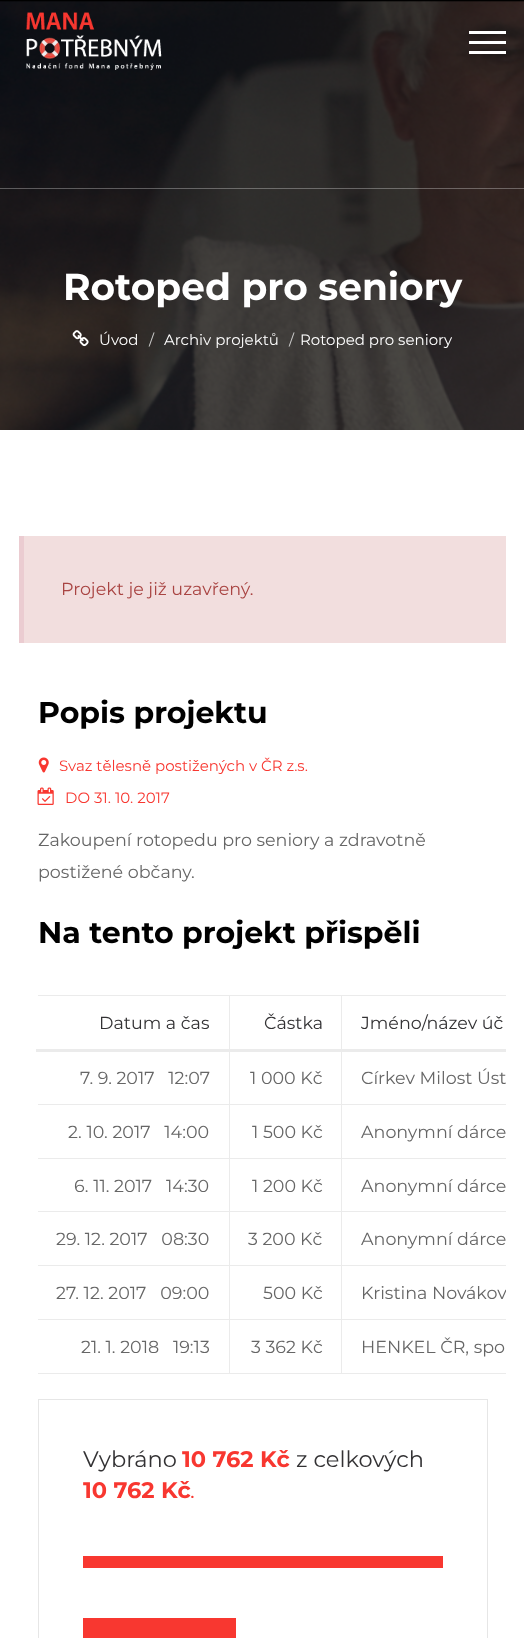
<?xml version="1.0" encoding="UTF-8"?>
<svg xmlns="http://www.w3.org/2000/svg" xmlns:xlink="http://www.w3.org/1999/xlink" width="524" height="1638">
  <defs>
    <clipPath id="clip1"><rect x="19" y="983" width="487" height="391" /></clipPath>
  </defs>
  <rect width="100%" height="100%" fill="#ffffff" />
  <rect width="524" height="2" fill="#000000" />
  <image x="0" y="1" width="524" height="429" xlink:href="image2.png" />
  <image x="26" y="12" width="136" height="59" xlink:href="image1.png" />
  <rect x="469" y="31" width="37" height="3" fill="#ffffff" />
  <rect x="469" y="51" width="37" height="3" fill="#ffffff" />
  <rect x="469" y="41" width="37" height="3" fill="#ffffff" />
  <rect y="188" width="524" height="1" fill="#ffffff" fill-opacity="0.3" />
  <image x="72" y="330" width="17" height="17" xlink:href="image3.png" />
  <rect x="24" y="536" width="482" height="107" fill="#f2dede" />
  <rect x="19" y="536" width="5" height="107" fill="#ebccd1" />
  <image x="38" y="757" width="11" height="16" xlink:href="image4.png" />
  <image x="37" y="787" width="17" height="18" xlink:href="image5.png" />
  <rect x="38" y="995" width="468" height="1" fill="#ebebeb" />
  <rect x="38" y="1373" width="468" height="1" fill="#ebebeb" />
  <rect x="341" y="1104" width="165" height="1" fill="#ebebeb" />
  <rect x="341" y="1158" width="165" height="1" fill="#ebebeb" />
  <rect x="341" y="1211" width="165" height="1" fill="#ebebeb" />
  <rect x="341" y="1265" width="165" height="1" fill="#ebebeb" />
  <rect x="341" y="1319" width="165" height="1" fill="#ebebeb" />
  <rect x="341" y="1319" width="1" height="55" fill="#ebebeb" />
  <rect x="229" y="1319" width="114" height="1" fill="#ebebeb" />
  <rect x="341" y="1265" width="1" height="55" fill="#ebebeb" />
  <rect x="229" y="1265" width="114" height="1" fill="#ebebeb" />
  <rect x="341" y="1211" width="1" height="55" fill="#ebebeb" />
  <rect x="229" y="1211" width="114" height="1" fill="#ebebeb" />
  <rect x="341" y="1158" width="1" height="55" fill="#ebebeb" />
  <rect x="229" y="1158" width="114" height="1" fill="#ebebeb" />
  <rect x="341" y="1104" width="1" height="55" fill="#ebebeb" />
  <rect x="229" y="1104" width="114" height="1" fill="#ebebeb" />
  <rect x="229" y="1319" width="1" height="55" fill="#ebebeb" />
  <rect x="38" y="1319" width="192" height="1" fill="#ebebeb" />
  <rect x="229" y="1265" width="1" height="55" fill="#ebebeb" />
  <rect x="38" y="1265" width="192" height="1" fill="#ebebeb" />
  <rect x="229" y="1211" width="1" height="55" fill="#ebebeb" />
  <rect x="38" y="1211" width="192" height="1" fill="#ebebeb" />
  <rect x="229" y="1158" width="1" height="55" fill="#ebebeb" />
  <rect x="38" y="1158" width="192" height="1" fill="#ebebeb" />
  <rect x="229" y="1104" width="1" height="55" fill="#ebebeb" />
  <rect x="38" y="1104" width="192" height="1" fill="#ebebeb" />
  <rect x="229" y="995" width="1" height="110" fill="#ebebeb" />
  <rect x="341" y="995" width="1" height="110" fill="#ebebeb" />
  <rect x="36" y="1049" width="470" height="3" fill="#ebebeb" />
  <rect x="38.5" y="1399.5" width="449" height="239" fill="none" stroke="#e6e6e6" />
  <rect x="83" y="1556" width="360" height="12" fill="#f83730" />
  <rect x="83" y="1618" width="153" height="20" fill="#f83730" />
  <text x="63" y="300" style="font-family: Montserrat; font-size: 37.5px; font-weight: bold; fill: #ffffff">Rotoped pro seniory</text>
  <text x="99" y="345" style="font-family: Montserrat; font-size: 15px; fill: #ffffff">Úvod</text>
  <text x="149" y="345" style="font-family: Montserrat; font-size: 15px; fill: #cccccc">/</text>
  <text x="164" y="345" style="font-family: Montserrat; font-size: 15px; fill: #ffffff">Archiv projektů</text>
  <text x="289" y="345" style="font-family: Montserrat; font-size: 15px; fill: #cccccc">/</text>
  <text x="300" y="345" style="font-family: Montserrat; font-size: 15px; fill: #ffffff">Rotoped pro seniory</text>
  <text x="61" y="595" style="font-family: Montserrat; font-size: 17.5px; fill: #a94442">Projekt je již uzavřený.</text>
  <text x="38" y="723" style="font-family: Montserrat; font-size: 30px; font-weight: bold; fill: #000000">Popis projektu</text>
  <text x="59" y="771" style="font-family: Montserrat; font-size: 15px; fill: #f83730">Svaz tělesně postižených v ČR z.s.</text>
  <text x="65" y="803" style="font-family: Montserrat; font-size: 15px; fill: #f83730">DO 31. 10. 2017</text>
  <text x="38" y="846" style="font-family: Montserrat; font-size: 17.5px; fill: #666666">Zakoupení rotopedu pro seniory a zdravotně</text>
  <text x="38" y="878" style="font-family: Montserrat; font-size: 17.5px; fill: #666666">postižené občany.</text>
  <text x="38" y="943" style="font-family: Montserrat; font-size: 30px; font-weight: bold; fill: #000000">Na tento projekt přispěli</text>
  <text x="99" y="1029" style="font-family: Montserrat; font-size: 17.5px; fill: #333234">Datum a čas</text>
  <text x="264" y="1029" style="font-family: Montserrat; font-size: 17.5px; fill: #333234">Částka</text>
  <text x="361" y="1029" style="font-family: Montserrat; font-size: 17.5px; fill: #333234">Jméno/název úč</text>
  <text x="80" y="1084" style="font-family: Montserrat; font-size: 17.5px; fill: #666666" xml:space="preserve">7. 9. 2017   12:07</text>
  <text x="250" y="1084" style="font-family: Montserrat; font-size: 17.5px; fill: #666666">1 000 Kč</text>
  <text x="361" y="1084" style="font-family: Montserrat; font-size: 17.5px; fill: #666666">Církev Milost Úst</text>
  <text x="68" y="1138" style="font-family: Montserrat; font-size: 17.5px; fill: #666666" xml:space="preserve">2. 10. 2017   14:00</text>
  <text x="252" y="1138" style="font-family: Montserrat; font-size: 17.5px; fill: #666666">1 500 Kč</text>
  <text x="361" y="1138" style="font-family: Montserrat; font-size: 17.5px; fill: #666666">Anonymní dárce</text>
  <text x="74" y="1192" style="font-family: Montserrat; font-size: 17.5px; fill: #666666" xml:space="preserve">6. 11. 2017   14:30</text>
  <text x="252" y="1192" style="font-family: Montserrat; font-size: 17.5px; fill: #666666">1 200 Kč</text>
  <text x="361" y="1192" style="font-family: Montserrat; font-size: 17.5px; fill: #666666">Anonymní dárce</text>
  <text x="56" y="1245" style="font-family: Montserrat; font-size: 17.5px; fill: #666666" xml:space="preserve">29. 12. 2017   08:30</text>
  <text x="248" y="1245" style="font-family: Montserrat; font-size: 17.5px; fill: #666666">3 200 Kč</text>
  <text x="361" y="1245" style="font-family: Montserrat; font-size: 17.5px; fill: #666666">Anonymní dárce</text>
  <text x="56" y="1299" style="font-family: Montserrat; font-size: 17.5px; fill: #666666" xml:space="preserve">27. 12. 2017   09:00</text>
  <text x="263" y="1299" style="font-family: Montserrat; font-size: 17.5px; fill: #666666">500 Kč</text>
  <g clip-path="url(#clip1)">
    <text x="361" y="1299" style="font-family: Montserrat; font-size: 17.5px; fill: #666666">Kristina Novákov</text>
  </g>
  <text x="81" y="1353" style="font-family: Montserrat; font-size: 17.5px; fill: #666666" xml:space="preserve">21. 1. 2018   19:13</text>
  <text x="251" y="1353" style="font-family: Montserrat; font-size: 17.5px; fill: #666666">3 362 Kč</text>
  <text x="361" y="1353" style="font-family: Montserrat; font-size: 17.5px; fill: #666666">HENKEL ČR, spo</text>
  <text x="83" y="1467" style="font-family: Montserrat; font-size: 22.5px; fill: #333234">Vybráno</text>
  <text x="182" y="1467" style="font-family: Montserrat; font-size: 22.5px; font-weight: bold; fill: #f83730">10 762 Kč</text>
  <text x="296" y="1467" style="font-family: Montserrat; font-size: 22.5px; fill: #333234">z celkových</text>
  <text x="83" y="1498" style="font-family: Montserrat; font-size: 22.5px; font-weight: bold; fill: #f83730">10 762 Kč</text>
  <text x="190" y="1498" style="font-family: Montserrat; font-size: 22.5px; fill: #f83730">.</text>
</svg>
